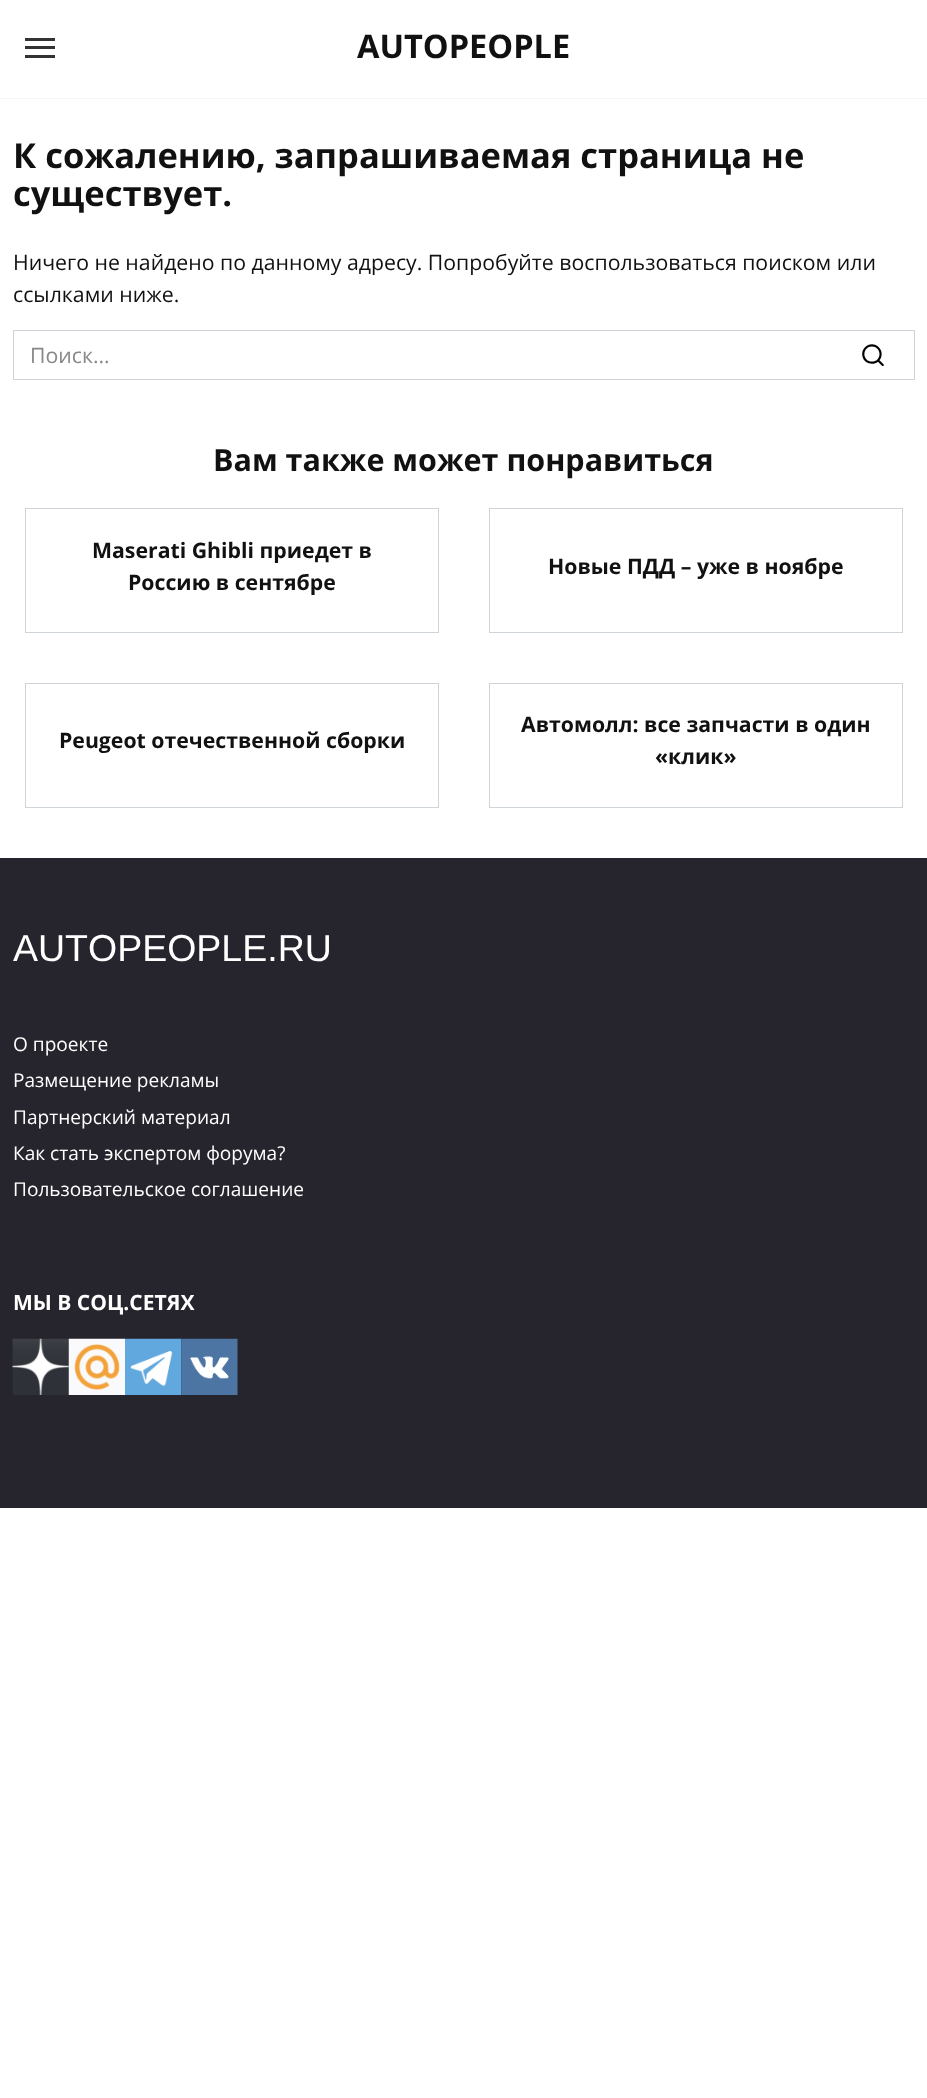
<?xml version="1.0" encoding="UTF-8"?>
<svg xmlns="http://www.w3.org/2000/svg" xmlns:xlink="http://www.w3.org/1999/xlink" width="927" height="2098">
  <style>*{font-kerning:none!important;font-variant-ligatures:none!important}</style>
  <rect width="100%" height="100%" fill="#ffffff" />
  <rect y="98" width="927" height="1" fill="#f2f5f9" />
  <rect x="25" y="38" width="30" height="3" fill="#333333" />
  <rect x="25" y="46" width="30" height="3" fill="#333333" />
  <rect x="25" y="55" width="30" height="3" fill="#333333" />
  <rect x="13.5" y="330.5" width="901" height="49" fill="none" stroke="#ced4da" />
  <rect x="25.5" y="508.5" width="413" height="124" fill="none" stroke="#ced4da" />
  <rect x="489.5" y="508.5" width="413" height="124" fill="none" stroke="#ced4da" />
  <rect x="25.5" y="683.5" width="413" height="124" fill="none" stroke="#ced4da" />
  <rect x="489.5" y="683.5" width="413" height="124" fill="none" stroke="#ced4da" />
  <rect y="858" width="927" height="650" fill="#26252d" />
  <image x="12" y="1338" width="57" height="57" xlink:href="image1.png" />
  <image x="68" y="1338" width="57" height="57" xlink:href="image2.png" />
  <image x="125" y="1338" width="57" height="57" xlink:href="image3.png" />
  <image x="181" y="1338" width="57" height="57" xlink:href="image4.png" />
  <text x="357" y="58" style="font-family: Open Sans; font-size: 32.5px; font-weight: bold; fill: #111111">AUTOPEOPLE</text>
  <text x="13" y="168" style="font-family: Open Sans; font-size: 34.5px; font-weight: bold; fill: #111111">К сожалению, запрашиваемая страница не</text>
  <text x="13" y="206" style="font-family: Open Sans; font-size: 34.5px; font-weight: bold; fill: #111111">существует.</text>
  <text x="13" y="270" style="font-family: Open Sans; font-size: 21.25px; fill: #111111">Ничего не найдено по данному адресу. Попробуйте воспользоваться поиском или</text>
  <text x="13" y="302" style="font-family: Open Sans; font-size: 21.25px; fill: #111111">ссылками ниже.</text>
  <text x="30" y="363" style="font-family: Open Sans; font-size: 21.25px; fill: #888888">Поиск…</text>
  <text x="860" y="366" style="font-family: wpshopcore; font-size: 26px; fill: #000000">🔍</text>
  <text x="213" y="471" style="font-family: Open Sans; font-size: 30.5px; font-weight: bold; fill: #111111">Вам также может понравиться</text>
  <text x="92" y="558" style="font-family: Open Sans; font-size: 21.25px; font-weight: bold; fill: #111111">Maserati Ghibli приедет в</text>
  <text x="128" y="590" style="font-family: Open Sans; font-size: 21.25px; font-weight: bold; fill: #111111">Россию в сентябре</text>
  <text x="548" y="574" style="font-family: Open Sans; font-size: 21.25px; font-weight: bold; fill: #111111">Новые ПДД – уже в ноябре</text>
  <text x="59" y="748" style="font-family: Open Sans; font-size: 21.25px; font-weight: bold; fill: #111111">Peugeot отечественной сборки</text>
  <text x="521" y="732" style="font-family: Open Sans; font-size: 21.25px; font-weight: bold; fill: #111111">Автомолл: все запчасти в один</text>
  <text x="655" y="764" style="font-family: Open Sans; font-size: 21.25px; font-weight: bold; fill: #111111">«клик»</text>
  <text x="13" y="961" style="font-family: Liberation Sans; font-size: 37.5px; fill: #ffffff">AUTOPEOPLE.RU</text>
  <text x="13" y="1051" style="font-family: Open Sans; font-size: 19.1px; fill: #ffffff">О проекте</text>
  <text x="13" y="1087" style="font-family: Open Sans; font-size: 19.1px; fill: #ffffff">Размещение рекламы</text>
  <text x="13" y="1124" style="font-family: Open Sans; font-size: 19.1px; fill: #ffffff">Партнерский материал</text>
  <text x="13" y="1160" style="font-family: Open Sans; font-size: 19.1px; fill: #ffffff">Как стать экспертом форума?</text>
  <text x="13" y="1196" style="font-family: Open Sans; font-size: 19.1px; fill: #ffffff">Пользовательское соглашение</text>
  <text x="13" y="1310" style="font-family: Open Sans; font-size: 21px; font-weight: bold; fill: #ffffff">МЫ В СОЦ.СЕТЯХ</text>
</svg>
